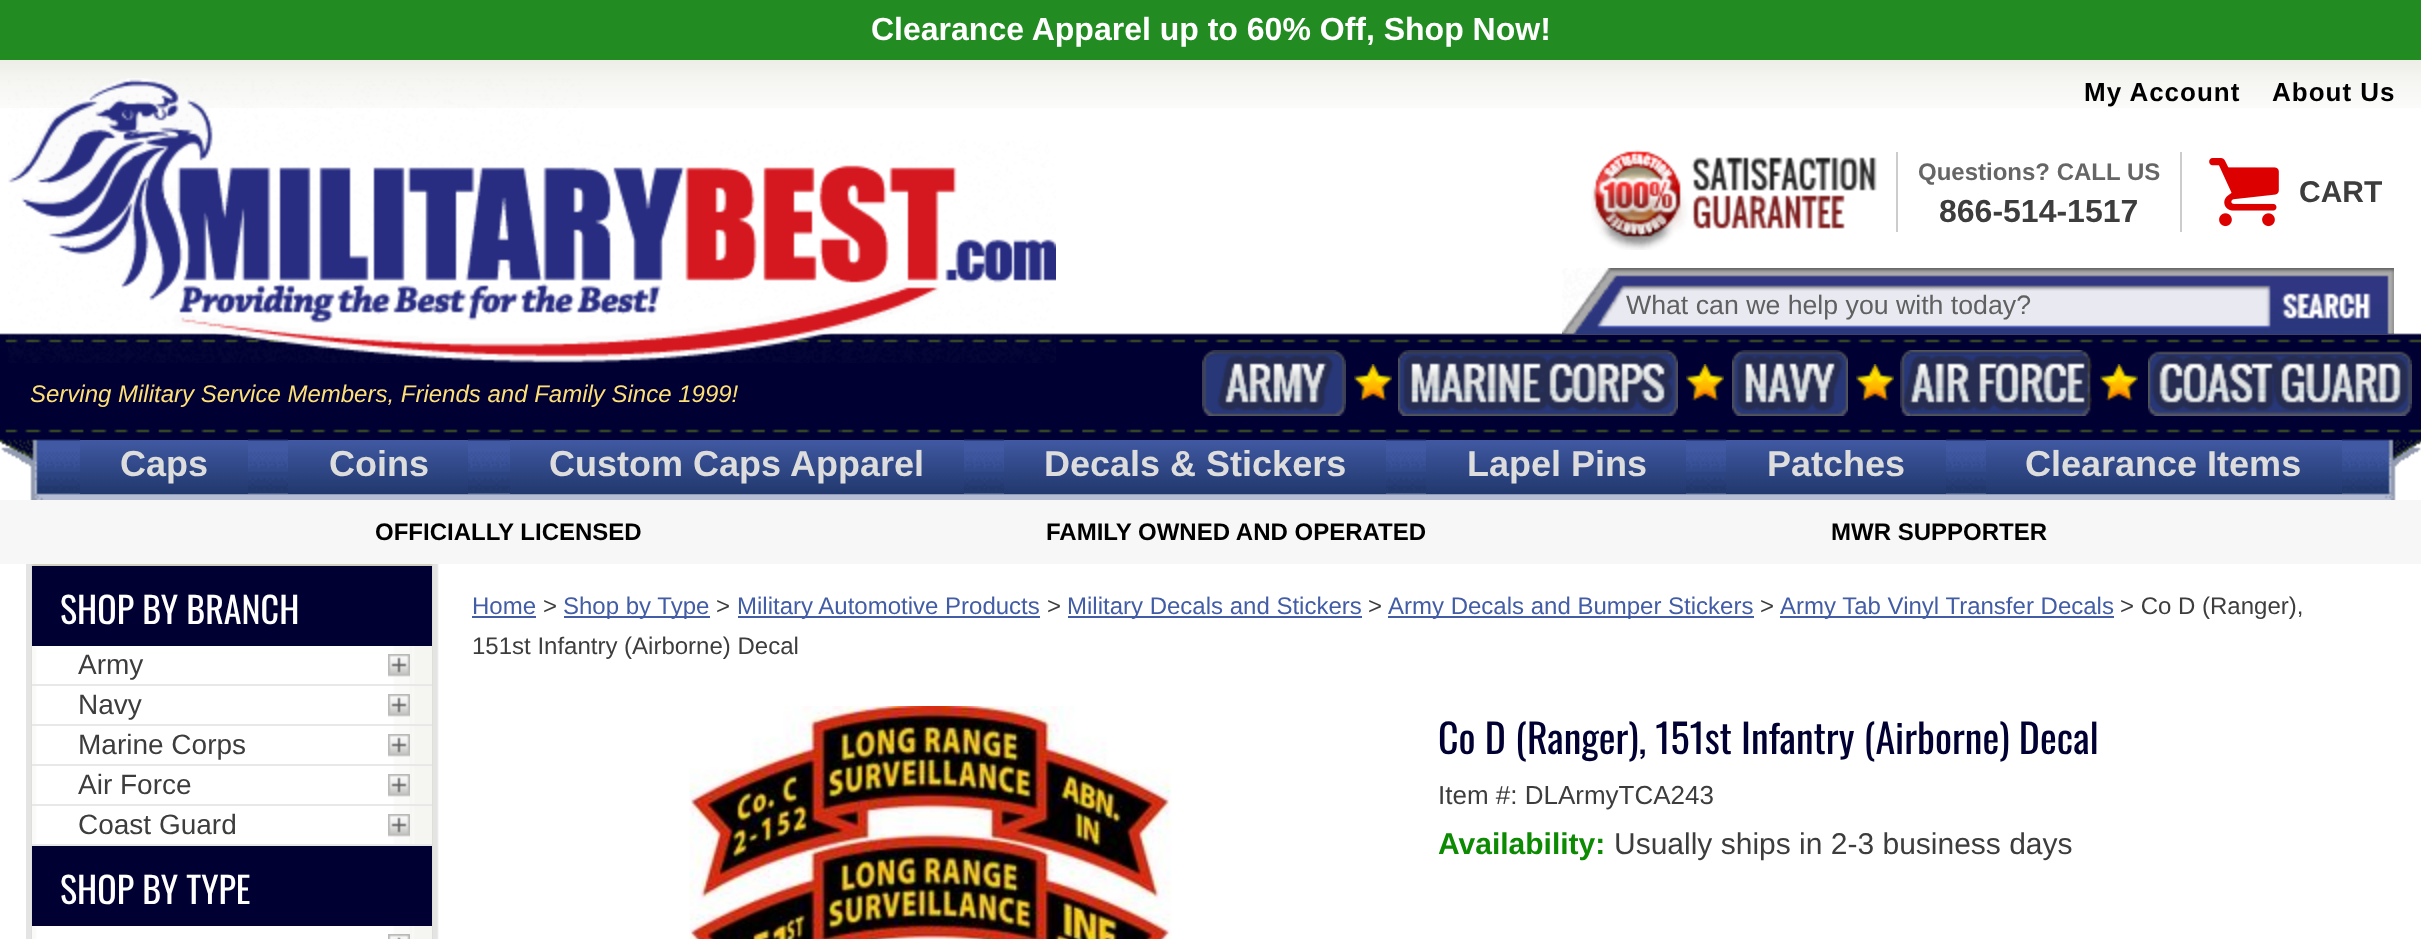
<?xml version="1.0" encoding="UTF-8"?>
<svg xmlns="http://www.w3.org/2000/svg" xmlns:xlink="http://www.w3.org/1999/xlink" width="2421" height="939">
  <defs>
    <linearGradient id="g1" gradientUnits="userSpaceOnUse" x1="164" y1="436" x2="164" y2="494"><stop offset="0" stop-color="#000032" /><stop offset="0.07" stop-color="#000032" /><stop offset="0.07" stop-color="#4059a2" /><stop offset="1" stop-color="#21386d" /></linearGradient>
    <linearGradient id="g2" gradientUnits="userSpaceOnUse" x1="378" y1="436" x2="378" y2="494"><stop offset="0" stop-color="#000032" /><stop offset="0.07" stop-color="#000032" /><stop offset="0.07" stop-color="#4059a2" /><stop offset="1" stop-color="#21386d" /></linearGradient>
    <linearGradient id="g3" gradientUnits="userSpaceOnUse" x1="737" y1="436" x2="737" y2="494"><stop offset="0" stop-color="#000032" /><stop offset="0.07" stop-color="#000032" /><stop offset="0.07" stop-color="#4059a2" /><stop offset="1" stop-color="#21386d" /></linearGradient>
    <linearGradient id="g4" gradientUnits="userSpaceOnUse" x1="1195" y1="436" x2="1195" y2="494"><stop offset="0" stop-color="#000032" /><stop offset="0.07" stop-color="#000032" /><stop offset="0.07" stop-color="#4059a2" /><stop offset="1" stop-color="#21386d" /></linearGradient>
    <linearGradient id="g5" gradientUnits="userSpaceOnUse" x1="1556" y1="436" x2="1556" y2="494"><stop offset="0" stop-color="#000032" /><stop offset="0.07" stop-color="#000032" /><stop offset="0.07" stop-color="#4059a2" /><stop offset="1" stop-color="#21386d" /></linearGradient>
    <linearGradient id="g6" gradientUnits="userSpaceOnUse" x1="1836" y1="436" x2="1836" y2="494"><stop offset="0" stop-color="#000032" /><stop offset="0.07" stop-color="#000032" /><stop offset="0.07" stop-color="#4059a2" /><stop offset="1" stop-color="#21386d" /></linearGradient>
    <linearGradient id="g7" gradientUnits="userSpaceOnUse" x1="2164" y1="436" x2="2164" y2="494"><stop offset="0" stop-color="#000032" /><stop offset="0.07" stop-color="#000032" /><stop offset="0.07" stop-color="#4059a2" /><stop offset="1" stop-color="#21386d" /></linearGradient>
  </defs>
  <rect width="100%" height="100%" fill="#ffffff" />
  <image x="0" y="60" width="2421" height="48" xlink:href="image1.png" />
  <rect width="2421" height="60" fill="#228b22" />
  <image x="0" y="333" width="2421" height="167" xlink:href="image2.png" />
  <image x="8" y="78" width="1048" height="285" xlink:href="image3.png" />
  <image x="1591" y="149" width="286" height="101" xlink:href="image4.png" />
  <rect x="2180" y="152" width="2" height="80" fill="#cccccc" />
  <rect x="1896" y="152" width="2" height="80" fill="#cccccc" />
  <image x="2209" y="158" width="70" height="69" xlink:href="image5.png" />
  <image x="1562" y="268" width="832" height="66" xlink:href="image6.png" />
  <image x="1354" y="364" width="38" height="38" xlink:href="image7.png" />
  <image x="1202" y="350" width="144" height="66" xlink:href="image8.png" />
  <image x="1686" y="364" width="38" height="38" xlink:href="image7.png" />
  <image x="1398" y="350" width="280" height="66" xlink:href="image9.png" />
  <image x="1856" y="364" width="38" height="38" xlink:href="image7.png" />
  <image x="1732" y="350" width="116" height="66" xlink:href="image10.png" />
  <image x="2100" y="364" width="38" height="38" xlink:href="image7.png" />
  <image x="1900" y="350" width="192" height="66" xlink:href="image11.png" />
  <image x="2148" y="351" width="264" height="65" xlink:href="image12.png" />
  <rect x="80" y="439" width="168" height="55" fill="url(#g1)" />
  <rect x="288" y="439" width="180" height="55" fill="url(#g2)" />
  <rect x="510" y="439" width="454" height="55" fill="url(#g3)" />
  <rect x="1004" y="439" width="382" height="55" fill="url(#g4)" />
  <rect x="1426" y="439" width="260" height="55" fill="url(#g5)" />
  <rect x="1726" y="439" width="220" height="55" fill="url(#g6)" />
  <rect x="1986" y="439" width="356" height="55" fill="url(#g7)" />
  <rect y="500" width="2421" height="64" fill="#f7f7f7" />
  <image x="26" y="564" width="413" height="375" xlink:href="image13.png" />
  <image x="32" y="646" width="400" height="293" xlink:href="image14.png" />
  <rect x="32" y="566" width="400" height="80" fill="#000032" />
  <image x="388" y="654" width="22" height="23" xlink:href="image15.png" />
  <rect x="32" y="684" width="400" height="2" fill="#e8e8e8" />
  <image x="388" y="694" width="22" height="23" xlink:href="image15.png" />
  <rect x="32" y="724" width="400" height="2" fill="#e8e8e8" />
  <image x="388" y="734" width="22" height="23" xlink:href="image15.png" />
  <rect x="32" y="764" width="400" height="2" fill="#e8e8e8" />
  <image x="388" y="774" width="22" height="23" xlink:href="image15.png" />
  <rect x="32" y="804" width="400" height="2" fill="#e8e8e8" />
  <image x="388" y="814" width="22" height="23" xlink:href="image15.png" />
  <rect x="32" y="844" width="400" height="2" fill="#e8e8e8" />
  <rect x="32" y="846" width="400" height="80" fill="#000032" />
  <image x="388" y="934" width="22" height="5" xlink:href="image16.png" />
  <rect x="472" y="616" width="64" height="2" fill="#425da5" />
  <rect x="564" y="616" width="146" height="2" fill="#425da5" />
  <rect x="738" y="616" width="302" height="2" fill="#425da5" />
  <rect x="1068" y="616" width="294" height="2" fill="#425da5" />
  <rect x="1388" y="616" width="366" height="2" fill="#425da5" />
  <rect x="1780" y="616" width="334" height="2" fill="#425da5" />
  <image x="689" y="706" width="483" height="233" xlink:href="image17.png" />
  <text x="871" y="40" style="font-family: Liberation Sans; font-size: 32px; font-weight: bold; fill: #ffffff">Clearance Apparel up to 60% Off, Shop Now!</text>
  <text x="2084" y="101" style="font-family: Liberation Sans; font-size: 26px; font-weight: bold; letter-spacing: 1px; fill: #000000">My Account</text>
  <text x="2272" y="101" style="font-family: Liberation Sans; font-size: 26px; font-weight: bold; letter-spacing: 1px; fill: #000000">About Us</text>
  <text x="1918" y="180" style="font-family: Liberation Sans; font-size: 24px; font-weight: bold; fill: #666666">Questions? CALL US</text>
  <text x="1939" y="222" style="font-family: Liberation Sans; font-size: 32px; font-weight: bold; fill: #3d3d3d">866-514-1517</text>
  <text x="2299" y="202" style="font-family: Liberation Sans; font-size: 30px; font-weight: bold; fill: #3d3d3d">CART</text>
  <text x="1626" y="314" style="font-family: Liberation Sans; font-size: 26.7px; fill: #606060">What can we help you with today?</text>
  <text x="30" y="402" style="font-family: Liberation Sans; font-size: 24px; font-style: italic; fill: #fddf77">Serving Military Service Members, Friends and Family Since 1999!</text>
  <text x="120" y="476" style="font-family: Liberation Sans; font-size: 36px; font-weight: bold; fill: #dddddd">Caps</text>
  <text x="329" y="476" style="font-family: Liberation Sans; font-size: 36px; font-weight: bold; fill: #dddddd">Coins</text>
  <text x="549" y="476" style="font-family: Liberation Sans; font-size: 36px; font-weight: bold; fill: #dddddd">Custom Caps</text>
  <text x="790" y="476" style="font-family: Liberation Sans; font-size: 36px; font-weight: bold; fill: #dddddd">Apparel</text>
  <text x="1044" y="476" style="font-family: Liberation Sans; font-size: 36px; font-weight: bold; fill: #dddddd">Decals &amp; Stickers</text>
  <text x="1467" y="476" style="font-family: Liberation Sans; font-size: 36px; font-weight: bold; fill: #dddddd">Lapel Pins</text>
  <text x="1767" y="476" style="font-family: Liberation Sans; font-size: 36px; font-weight: bold; fill: #dddddd">Patches</text>
  <text x="2025" y="476" style="font-family: Liberation Sans; font-size: 36px; font-weight: bold; fill: #dddddd">Clearance Items</text>
  <text x="375" y="540" style="font-family: Liberation Sans; font-size: 24px; font-weight: bold; fill: #000000">OFFICIALLY LICENSED</text>
  <text x="1046" y="540" style="font-family: Liberation Sans; font-size: 24px; font-weight: bold; fill: #000000">FAMILY OWNED AND OPERATED</text>
  <text x="1831" y="540" style="font-family: Liberation Sans; font-size: 24px; font-weight: bold; fill: #000000">MWR SUPPORTER</text>
  <text x="60" y="624" style="font-family: Oswald; font-size: 36px; fill: #ffffff">SHOP BY BRANCH</text>
  <text x="78" y="674" style="font-family: Liberation Sans; font-size: 28px; fill: #3d3d3d">Army</text>
  <text x="78" y="714" style="font-family: Liberation Sans; font-size: 28px; fill: #3d3d3d">Navy</text>
  <text x="78" y="754" style="font-family: Liberation Sans; font-size: 28px; fill: #3d3d3d">Marine Corps</text>
  <text x="78" y="794" style="font-family: Liberation Sans; font-size: 28px; fill: #3d3d3d">Air Force</text>
  <text x="78" y="834" style="font-family: Liberation Sans; font-size: 28px; fill: #3d3d3d">Coast Guard</text>
  <text x="60" y="904" style="font-family: Oswald; font-size: 36px; fill: #ffffff">SHOP BY TYPE</text>
  <text x="472" y="614" style="font-family: Liberation Sans; font-size: 24px; fill: #425da5">Home</text>
  <text x="543" y="614" style="font-family: Liberation Sans; font-size: 24px; fill: #3d3d3d">&gt;</text>
  <text x="563" y="614" style="font-family: Liberation Sans; font-size: 24px; fill: #425da5">Shop by Type</text>
  <text x="716" y="614" style="font-family: Liberation Sans; font-size: 24px; fill: #3d3d3d">&gt;</text>
  <text x="737" y="614" style="font-family: Liberation Sans; font-size: 24px; fill: #425da5">Military Automotive Products</text>
  <text x="1047" y="614" style="font-family: Liberation Sans; font-size: 24px; fill: #3d3d3d">&gt;</text>
  <text x="1067" y="614" style="font-family: Liberation Sans; font-size: 24px; fill: #425da5">Military Decals and Stickers</text>
  <text x="1368" y="614" style="font-family: Liberation Sans; font-size: 24px; fill: #3d3d3d">&gt;</text>
  <text x="1388" y="614" style="font-family: Liberation Sans; font-size: 24px; fill: #425da5">Army Decals and Bumper Stickers</text>
  <text x="1760" y="614" style="font-family: Liberation Sans; font-size: 24px; fill: #3d3d3d">&gt;</text>
  <text x="1780" y="614" style="font-family: Liberation Sans; font-size: 24px; fill: #425da5">Army Tab Vinyl Transfer Decals</text>
  <text x="2120" y="614" style="font-family: Liberation Sans; font-size: 24px; fill: #3d3d3d">&gt; Co D (Ranger),</text>
  <text x="472" y="654" style="font-family: Liberation Sans; font-size: 24px; fill: #3d3d3d">151st Infantry (Airborne) Decal</text>
  <text x="1438" y="754" style="font-family: Oswald; font-size: 40px; fill: #000032">Co D (Ranger), 151st Infantry (Airborne) Decal</text>
  <text x="1438" y="804" style="font-family: Liberation Sans; font-size: 26px; fill: #3d3d3d">Item #: DLArmyTCA243</text>
  <text x="1438" y="854" style="font-family: Liberation Sans; font-size: 30px; font-weight: bold; fill: #0b8a02">Availability:</text>
  <text x="1614" y="854" style="font-family: Liberation Sans; font-size: 30px; fill: #3d3d3d">Usually ships in 2-3 business days</text>
</svg>
